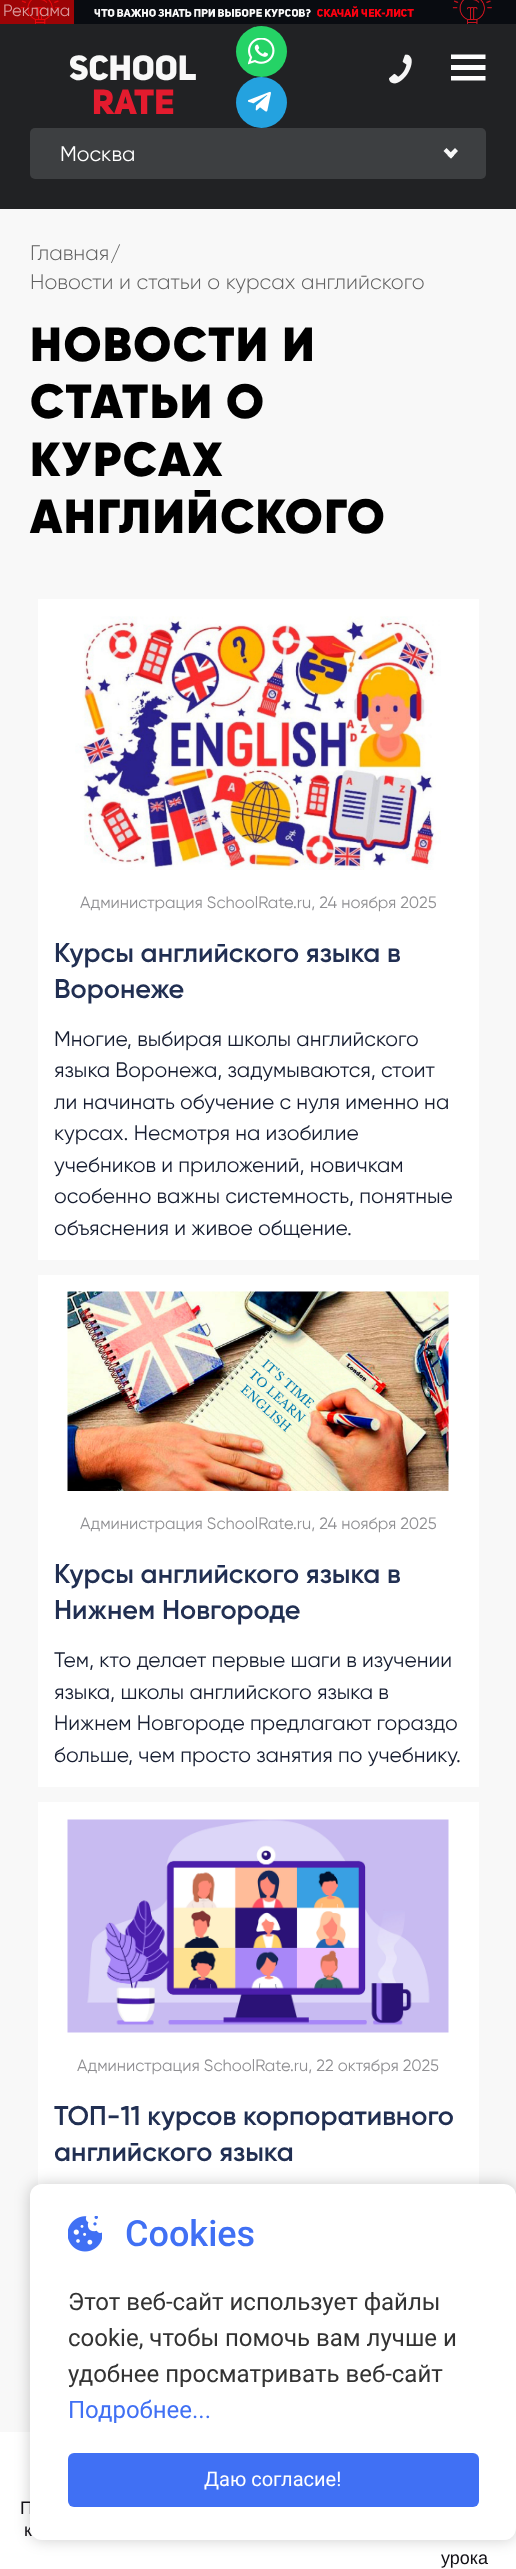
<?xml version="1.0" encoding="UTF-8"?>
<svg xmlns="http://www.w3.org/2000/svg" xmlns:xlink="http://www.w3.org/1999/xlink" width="516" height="2569">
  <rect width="100%" height="100%" fill="#f8f8f8" />
  <image x="0" y="0" width="516" height="24" xlink:href="image1.png" />
  <rect width="74" height="24" fill="#ff0000" fill-opacity="0.6" />
  <rect y="24" width="516" height="185" fill="#212224" />
  <circle cx="261.5" cy="51.5" r="25.5" fill="#25d366" />
  <image x="248" y="38" width="27" height="27" xlink:href="image2.png" />
  <circle cx="261.5" cy="102.5" r="25.5" fill="#24a2df" />
  <image x="248" y="91" width="23" height="21" xlink:href="image3.png" />
  <image x="389" y="54" width="23" height="30" xlink:href="image4.png" />
  <path d="M 451 80.5 v -4.5 h 34.5 v 4.5 z m 0 -15.5 h 34.5 v 5 h -34.5 z m 0 -10.5 h 34.5 v 4.5 h -34.5 z" fill="#fefefe" fill-rule="evenodd" />
  <rect x="30" y="128" width="456" height="51" rx="5" fill="#3d3f41" />
  <path d="M 447.5 155.5 l 7.5 -7.5 l 3 3 l -7 7.5 z" fill="#f8f8f8" />
  <path d="M 443.5 151 l 3 -3 l 7.5 7.5 l -3 3 z" fill="#f8f8f8" />
  <rect x="38" y="599" width="441" height="661" fill="#ffffff" />
  <image x="75" y="616" width="366" height="254" xlink:href="image5.png" />
  <rect x="38" y="1275" width="441" height="512" fill="#ffffff" />
  <image x="67" y="1291" width="382" height="200" xlink:href="image6.png" />
  <rect x="38" y="1802" width="441" height="383" fill="#ffffff" />
  <image x="67" y="1819" width="382" height="214" xlink:href="image7.png" />
  <rect y="2432" width="516" height="137" fill="#ffffff" />
  <rect x="30" y="2184" width="486" height="356" rx="12" fill="#000000" fill-opacity="0.2" filter="blur(7.5px)" />
  <text x="3" y="16" style="font-family: Gilroy; font-size: 16.5px; fill: #da9b9c">Реклама</text>
  <text x="69" y="80" style="font-family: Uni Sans; font-size: 34.5px; font-weight: 900; fill: #f8f8f8">School</text>
  <text x="92" y="114" style="font-family: Uni Sans; font-size: 34.5px; font-weight: 900; fill: #e41b2e">Rate</text>
  <text x="60" y="161" style="font-family: Gilroy; font-size: 21px; fill: #ffffff">Москва</text>
  <text x="30" y="260" style="font-family: Gilroy; font-size: 21px; font-weight: 300; fill: #606060">Главная</text>
  <text x="110" y="261" style="font-family: Gilroy; font-size: 21px; font-weight: 300; fill: #606060">/</text>
  <text x="30" y="289" style="font-family: Gilroy; font-size: 21px; font-weight: 300; fill: #606060">Новости и статьи о курсах английского</text>
  <text x="30" y="361" style="font-family: Gilroy; font-size: 48px; font-weight: 900; letter-spacing: 1.5px; fill: #000000">НОВОСТИ И</text>
  <text x="30" y="418" style="font-family: Gilroy; font-size: 48px; font-weight: 900; letter-spacing: 1.5px; fill: #000000">СТАТЬИ О</text>
  <text x="30" y="476" style="font-family: Gilroy; font-size: 48px; font-weight: 900; letter-spacing: 1.5px; fill: #000000">КУРСАХ</text>
  <text x="30" y="533" style="font-family: Gilroy; font-size: 48px; font-weight: 900; letter-spacing: 1.5px; fill: #000000">АНГЛИЙСКОГО</text>
  <text x="80" y="908" style="font-family: Gilroy; font-size: 16.5px; fill: #909093">Администрация SchoolRate.ru, 24 ноября 2025</text>
  <text x="54" y="962" style="font-family: Gilroy; font-size: 27px; font-weight: 600; fill: #212f52">Курсы английского языка в</text>
  <text x="54" y="998" style="font-family: Gilroy; font-size: 27px; font-weight: 600; fill: #212f52">Воронеже</text>
  <text x="54" y="1046" style="font-family: Gilroy; font-size: 21px; fill: #171e31">Многие, выбирая школы английского</text>
  <text x="54" y="1077" style="font-family: Gilroy; font-size: 21px; fill: #171e31">языка Воронежа, задумываются, стоит</text>
  <text x="54" y="1109" style="font-family: Gilroy; font-size: 21px; fill: #171e31">ли начинать обучение с нуля именно на</text>
  <text x="54" y="1140" style="font-family: Gilroy; font-size: 21px; fill: #171e31">курсах. Несмотря на изобилие</text>
  <text x="54" y="1172" style="font-family: Gilroy; font-size: 21px; fill: #171e31">учебников и приложений, новичкам</text>
  <text x="54" y="1203" style="font-family: Gilroy; font-size: 21px; fill: #171e31">особенно важны системность, понятные</text>
  <text x="54" y="1235" style="font-family: Gilroy; font-size: 21px; fill: #171e31">объяснения и живое общение.</text>
  <text x="80" y="1529" style="font-family: Gilroy; font-size: 16.5px; fill: #909093">Администрация SchoolRate.ru, 24 ноября 2025</text>
  <text x="54" y="1583" style="font-family: Gilroy; font-size: 27px; font-weight: 600; fill: #212f52">Курсы английского языка в</text>
  <text x="54" y="1619" style="font-family: Gilroy; font-size: 27px; font-weight: 600; fill: #212f52">Нижнем Новгороде</text>
  <text x="54" y="1667" style="font-family: Gilroy; font-size: 21px; fill: #171e31">Тем, кто делает первые шаги в изучении</text>
  <text x="54" y="1699" style="font-family: Gilroy; font-size: 21px; fill: #171e31">языка, школы английского языка в</text>
  <text x="54" y="1730" style="font-family: Gilroy; font-size: 21px; fill: #171e31">Нижнем Новгороде предлагают гораздо</text>
  <text x="54" y="1762" style="font-family: Gilroy; font-size: 21px; fill: #171e31">больше, чем просто занятия по учебнику.</text>
  <text x="77" y="2071" style="font-family: Gilroy; font-size: 16.5px; fill: #909093">Администрация SchoolRate.ru, 22 октября 2025</text>
  <text x="54" y="2125" style="font-family: Gilroy; font-size: 27px; font-weight: 600; fill: #212f52">ТОП-11 курсов корпоративного</text>
  <text x="54" y="2161" style="font-family: Gilroy; font-size: 27px; font-weight: 600; fill: #212f52">английского языка</text>
  <text x="20" y="2514" style="font-family: Liberation Sans; font-size: 18px; fill: #131117">П</text>
  <text x="24" y="2536" style="font-family: Liberation Sans; font-size: 18px; fill: #131117">к</text>
  <text x="441" y="2564" style="font-family: Liberation Sans; font-size: 18px; fill: #131117">урока</text>
  <rect x="30" y="2184" width="486" height="356" rx="12" fill="#ffffff" />
  <image x="68" y="2216" width="34" height="36" xlink:href="image8.png" />
  <text x="125" y="2246" style="font-family: Roboto; font-size: 36px; font-weight: 500; fill: #4070f4">Cookies</text>
  <text x="68" y="2310" style="font-family: Roboto; font-size: 24px; fill: #333333">Этот веб-сайт использует файлы</text>
  <text x="68" y="2346" style="font-family: Roboto; font-size: 24px; fill: #333333">cookie, чтобы помочь вам лучше и</text>
  <text x="68" y="2382" style="font-family: Roboto; font-size: 24px; fill: #333333">удобнее просматривать веб-сайт</text>
  <text x="68" y="2418" style="font-family: Roboto; font-size: 24px; fill: #4070f4">Подробнее...</text>
  <rect x="68" y="2453" width="411" height="54" rx="6" fill="#4070f4" />
  <text x="204" y="2486" style="font-family: Roboto; font-size: 20px; fill: #ffffff">Даю согласие!</text>
</svg>
